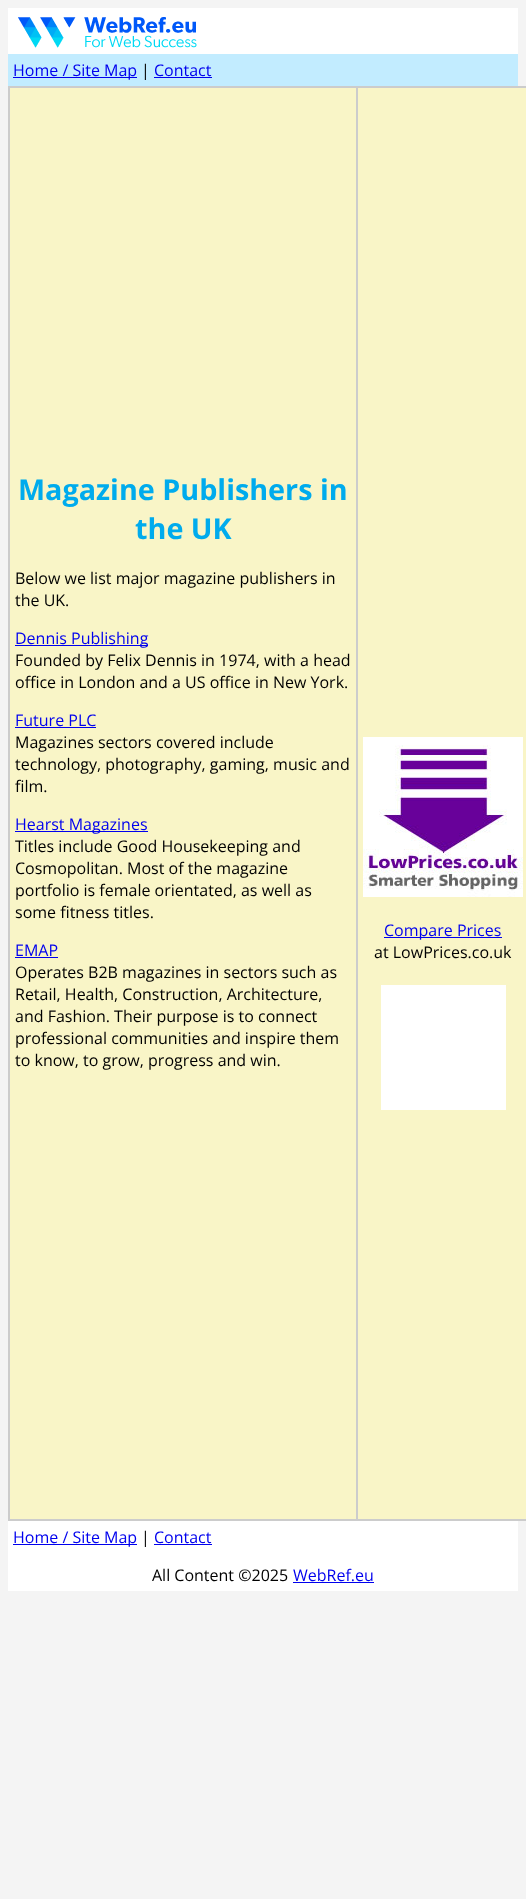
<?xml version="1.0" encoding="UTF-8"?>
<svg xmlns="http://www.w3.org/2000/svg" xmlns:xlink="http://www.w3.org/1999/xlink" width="526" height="1899">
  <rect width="100%" height="100%" fill="#f4f4f4" />
  <rect x="8" y="8" width="510" height="46" fill="#ffffff" />
  <image x="18" y="17" width="179" height="31" xlink:href="image1.png" />
  <rect x="8" y="54" width="510" height="32" fill="#c2ecff" />
  <rect x="13" y="77" width="124" height="1" fill="#0000ee" />
  <rect x="154" y="77" width="58" height="1" fill="#0000ee" />
  <rect x="10" y="88" width="516" height="1431" fill="#f9f5c7" />
  <rect x="8.5" y="86.5" width="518" height="1434" fill="none" stroke="#cccccc" />
  <rect x="9.5" y="87.5" width="347" height="1432" fill="none" stroke="#cccccc" />
  <rect x="15" y="645" width="133" height="1" fill="#0000ee" />
  <rect x="15" y="727" width="81" height="1" fill="#0000ee" />
  <rect x="15" y="831" width="133" height="1" fill="#0000ee" />
  <rect x="15" y="957" width="43" height="1" fill="#0000ee" />
  <rect x="357.5" y="87.5" width="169" height="1432" fill="none" stroke="#cccccc" />
  <image x="363" y="737" width="160" height="160" xlink:href="image2.png" />
  <rect x="384" y="937" width="118" height="1" fill="#0000ee" />
  <rect x="381" y="985" width="125" height="125" fill="#ffffff" />
  <rect x="8" y="1521" width="510" height="70" fill="#ffffff" />
  <rect x="13" y="1544" width="124" height="1" fill="#0000ee" />
  <rect x="154" y="1544" width="58" height="1" fill="#0000ee" />
  <rect x="293" y="1582" width="81" height="1" fill="#0000ee" />
  <text x="13" y="76" style="font-family: Open Sans; font-size: 16px; fill: #0000ee">Home / Site Map</text>
  <text x="141" y="76" style="font-family: Open Sans; font-size: 16px; fill: #000000">|</text>
  <text x="154" y="76" style="font-family: Open Sans; font-size: 16px; fill: #0000ee">Contact</text>
  <text x="18" y="500" style="font-family: Open Sans; font-size: 28.75px; font-weight: bold; fill: #00abed">Magazine Publishers in</text>
  <text x="135" y="539" style="font-family: Open Sans; font-size: 28.75px; font-weight: bold; fill: #00abed">the UK</text>
  <text x="15" y="584" style="font-family: Open Sans; font-size: 16px; fill: #000000">Below we list major magazine publishers in</text>
  <text x="15" y="606" style="font-family: Open Sans; font-size: 16px; fill: #000000">the UK.</text>
  <text x="15" y="644" style="font-family: Open Sans; font-size: 16px; fill: #0000ee">Dennis Publishing</text>
  <text x="15" y="666" style="font-family: Open Sans; font-size: 16px; fill: #000000">Founded by Felix Dennis in 1974, with a head</text>
  <text x="15" y="688" style="font-family: Open Sans; font-size: 16px; fill: #000000">office in London and a US office in New York.</text>
  <text x="15" y="726" style="font-family: Open Sans; font-size: 16px; fill: #0000ee">Future PLC</text>
  <text x="15" y="748" style="font-family: Open Sans; font-size: 16px; fill: #000000">Magazines sectors covered include</text>
  <text x="15" y="770" style="font-family: Open Sans; font-size: 16px; fill: #000000">technology, photography, gaming, music and</text>
  <text x="15" y="792" style="font-family: Open Sans; font-size: 16px; fill: #000000">film.</text>
  <text x="15" y="830" style="font-family: Open Sans; font-size: 16px; fill: #0000ee">Hearst Magazines</text>
  <text x="15" y="852" style="font-family: Open Sans; font-size: 16px; fill: #000000">Titles include Good Housekeeping and</text>
  <text x="15" y="874" style="font-family: Open Sans; font-size: 16px; fill: #000000">Cosmopolitan. Most of the magazine</text>
  <text x="15" y="896" style="font-family: Open Sans; font-size: 16px; fill: #000000">portfolio is female orientated, as well as</text>
  <text x="15" y="918" style="font-family: Open Sans; font-size: 16px; fill: #000000">some fitness titles.</text>
  <text x="15" y="956" style="font-family: Open Sans; font-size: 16px; fill: #0000ee">EMAP</text>
  <text x="15" y="978" style="font-family: Open Sans; font-size: 16px; fill: #000000">Operates B2B magazines in sectors such as</text>
  <text x="15" y="1000" style="font-family: Open Sans; font-size: 16px; fill: #000000">Retail, Health, Construction, Architecture,</text>
  <text x="15" y="1022" style="font-family: Open Sans; font-size: 16px; fill: #000000">and Fashion. Their purpose is to connect</text>
  <text x="15" y="1044" style="font-family: Open Sans; font-size: 16px; fill: #000000">professional communities and inspire them</text>
  <text x="15" y="1066" style="font-family: Open Sans; font-size: 16px; fill: #000000">to know, to grow, progress and win.</text>
  <text x="384" y="936" style="font-family: Open Sans; font-size: 16px; fill: #0000ee">Compare Prices</text>
  <text x="374" y="958" style="font-family: Open Sans; font-size: 16px; fill: #000000">at LowPrices.co.uk</text>
  <text x="13" y="1543" style="font-family: Open Sans; font-size: 16px; fill: #0000ee">Home / Site Map</text>
  <text x="141" y="1543" style="font-family: Open Sans; font-size: 16px; fill: #000000">|</text>
  <text x="154" y="1543" style="font-family: Open Sans; font-size: 16px; fill: #0000ee">Contact</text>
  <text x="152" y="1581" style="font-family: Open Sans; font-size: 16px; fill: #000000">All Content ©2025</text>
  <text x="293" y="1581" style="font-family: Open Sans; font-size: 16px; fill: #0000ee">WebRef.eu</text>
</svg>
